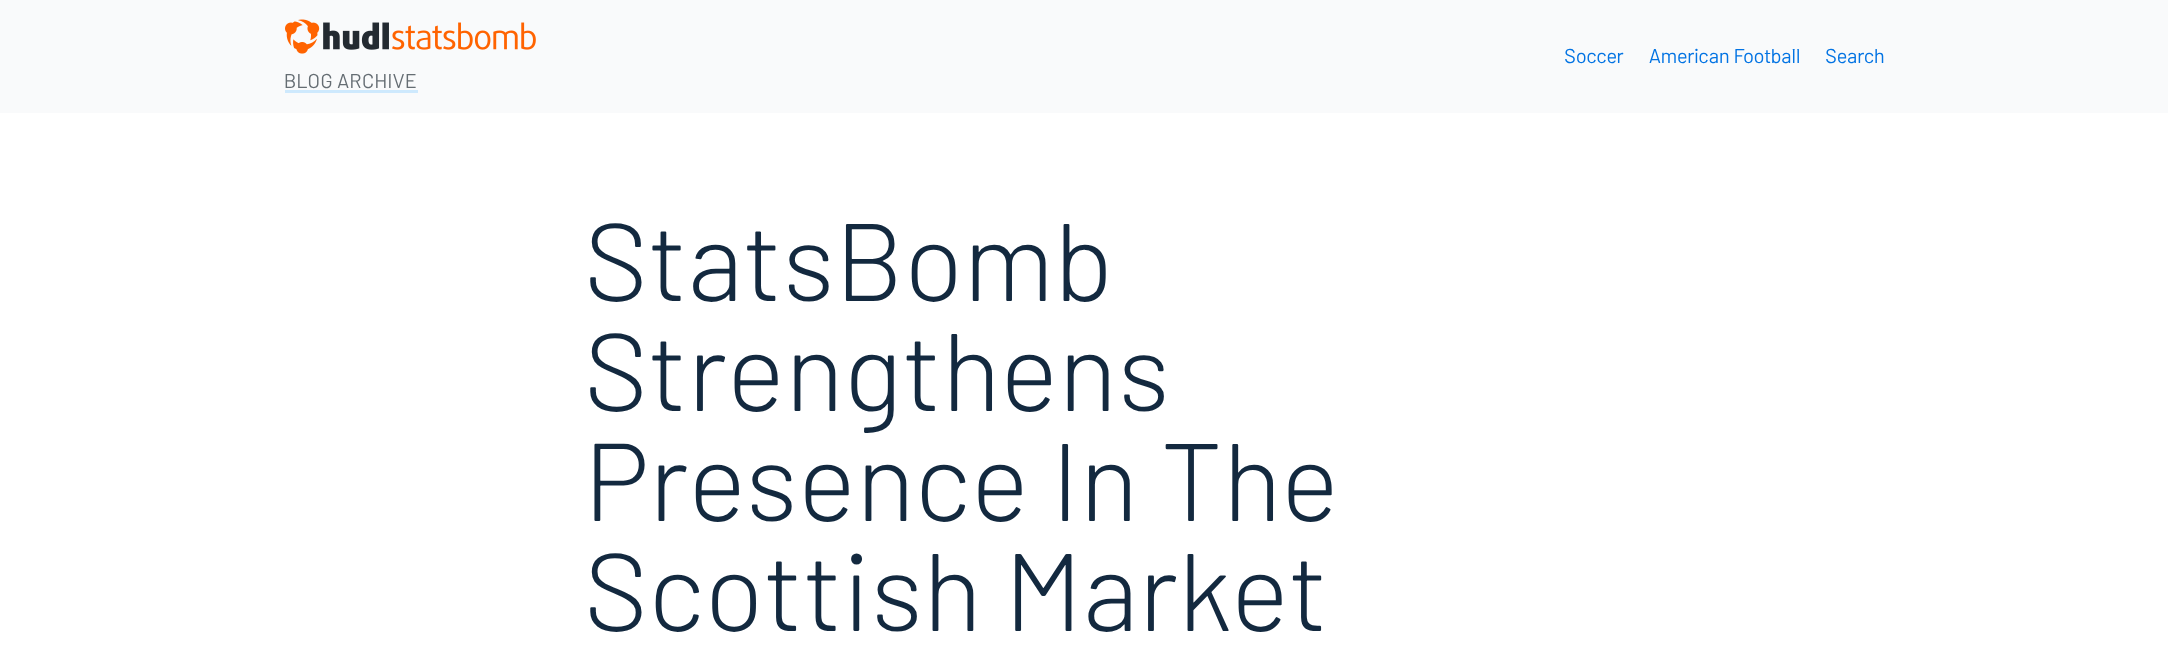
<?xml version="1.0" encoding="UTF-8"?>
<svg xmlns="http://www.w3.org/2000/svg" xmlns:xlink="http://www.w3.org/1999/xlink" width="2168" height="663">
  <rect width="100%" height="100%" fill="#ffffff" />
  <rect width="2168" height="113" fill="#f9fafb" />
  <image x="285" y="19" width="251" height="35" xlink:href="image1.png" />
  <rect x="285" y="90" width="133" height="3" fill="#cee9fd" />
  <text x="1564" y="63" style="font-family: Barlow; font-size: 20px; fill: #0273e3">Soccer</text>
  <text x="1649" y="63" style="font-family: Barlow; font-size: 20px; fill: #0273e3">American Football</text>
  <text x="1825" y="63" style="font-family: Barlow; font-size: 20px; fill: #0273e3">Search</text>
  <text x="284" y="88" style="font-family: Barlow; font-size: 20px; letter-spacing: 0.5px; fill: #656d73">BLOG ARCHIVE</text>
  <text x="584" y="301" style="font-family: Barlow; font-size: 110px; font-weight: 300; fill: #13293f">StatsBomb</text>
  <text x="584" y="411" style="font-family: Barlow; font-size: 110px; font-weight: 300; fill: #13293f">Strengthens</text>
  <text x="584" y="521" style="font-family: Barlow; font-size: 110px; font-weight: 300; fill: #13293f">Presence In The</text>
  <text x="584" y="631" style="font-family: Barlow; font-size: 110px; font-weight: 300; fill: #13293f">Scottish Market</text>
</svg>
